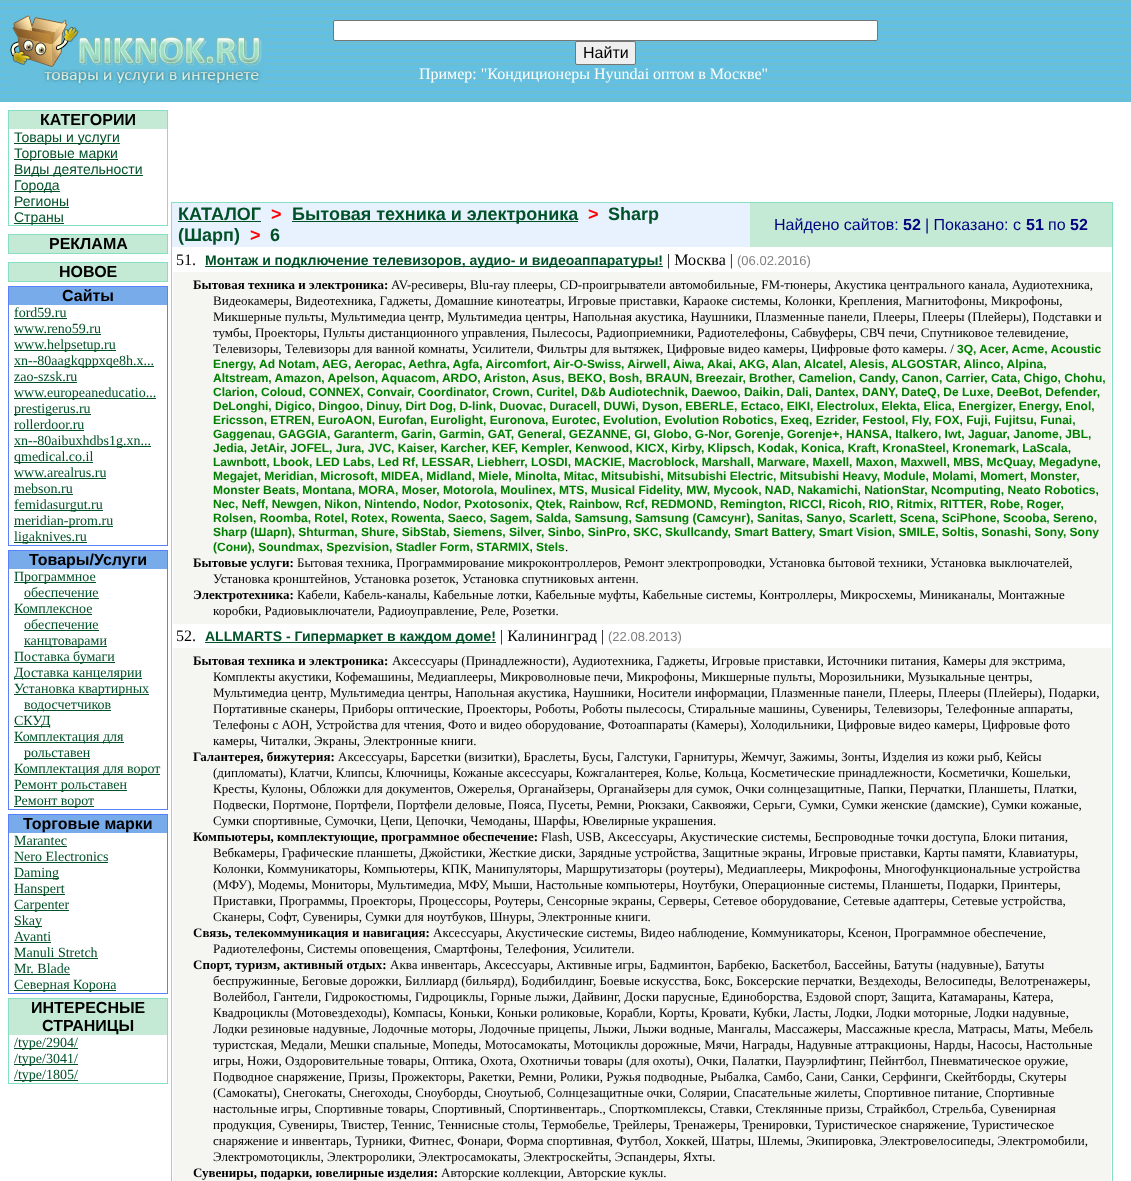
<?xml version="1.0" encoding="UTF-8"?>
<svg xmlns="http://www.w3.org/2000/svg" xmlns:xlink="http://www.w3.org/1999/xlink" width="1131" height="1181">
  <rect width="100%" height="100%" fill="#ffffff" />
  <image x="0" y="0" width="1131" height="102" xlink:href="image1.png" />
  <image x="9" y="13" width="255" height="76" xlink:href="image2.png" />
  <rect x="333.5" y="20.5" width="544" height="20" rx="1.5" fill="#ffffff" stroke="#767676" />
  <rect x="575.5" y="41.5" width="60" height="23" rx="1.5" fill="#efefef" stroke="#767676" />
  <rect x="8.5" y="110.5" width="159" height="115" fill="none" stroke="#85e0c2" />
  <rect x="9" y="111" width="158" height="18" fill="#c4ead6" />
  <rect x="14" y="143" width="106" height="1" fill="#005128" />
  <rect x="14" y="159" width="104" height="1" fill="#005128" />
  <rect x="14" y="175" width="129" height="1" fill="#005128" />
  <rect x="14" y="191" width="46" height="1" fill="#005128" />
  <rect x="14" y="207" width="55" height="1" fill="#005128" />
  <rect x="14" y="223" width="50" height="1" fill="#005128" />
  <rect x="8.5" y="234.5" width="159" height="19" fill="none" stroke="#85e0c2" />
  <rect x="9" y="235" width="158" height="18" fill="#c4ead6" />
  <rect x="8.5" y="262.5" width="159" height="19" fill="none" stroke="#85e0c2" />
  <rect x="9" y="263" width="158" height="18" fill="#c4ead6" />
  <rect x="8.5" y="286.5" width="159" height="259" fill="none" stroke="#5a80fe" />
  <rect x="9" y="287" width="158" height="18" fill="#78abe9" />
  <rect x="14" y="318" width="53" height="1" fill="#005128" />
  <rect x="14" y="334" width="87" height="1" fill="#005128" />
  <rect x="14" y="350" width="102" height="1" fill="#005128" />
  <rect x="14" y="366" width="140" height="1" fill="#005128" />
  <rect x="14" y="382" width="63" height="1" fill="#005128" />
  <rect x="14" y="398" width="142" height="1" fill="#005128" />
  <rect x="14" y="414" width="77" height="1" fill="#005128" />
  <rect x="14" y="430" width="70" height="1" fill="#005128" />
  <rect x="14" y="446" width="137" height="1" fill="#005128" />
  <rect x="14" y="462" width="79" height="1" fill="#005128" />
  <rect x="14" y="478" width="92" height="1" fill="#005128" />
  <rect x="14" y="494" width="59" height="1" fill="#005128" />
  <rect x="14" y="510" width="89" height="1" fill="#005128" />
  <rect x="14" y="526" width="99" height="1" fill="#005128" />
  <rect x="14" y="542" width="73" height="1" fill="#005128" />
  <rect x="8.5" y="550.5" width="159" height="259" fill="none" stroke="#5a80fe" />
  <rect x="9" y="551" width="158" height="18" fill="#78abe9" />
  <rect x="14" y="582" width="82" height="1" fill="#005128" />
  <rect x="24" y="598" width="75" height="1" fill="#005128" />
  <rect x="14" y="614" width="78" height="1" fill="#005128" />
  <rect x="24" y="630" width="75" height="1" fill="#005128" />
  <rect x="24" y="646" width="83" height="1" fill="#005128" />
  <rect x="14" y="662" width="101" height="1" fill="#005128" />
  <rect x="14" y="678" width="128" height="1" fill="#005128" />
  <rect x="14" y="694" width="135" height="1" fill="#005128" />
  <rect x="24" y="710" width="87" height="1" fill="#005128" />
  <rect x="14" y="726" width="36" height="1" fill="#005128" />
  <rect x="14" y="742" width="110" height="1" fill="#005128" />
  <rect x="24" y="758" width="66" height="1" fill="#005128" />
  <rect x="14" y="774" width="146" height="1" fill="#005128" />
  <rect x="14" y="790" width="113" height="1" fill="#005128" />
  <rect x="14" y="806" width="80" height="1" fill="#005128" />
  <rect x="8.5" y="814.5" width="159" height="179" fill="none" stroke="#5a80fe" />
  <rect x="9" y="815" width="158" height="18" fill="#78abe9" />
  <rect x="14" y="846" width="53" height="1" fill="#005128" />
  <rect x="14" y="862" width="94" height="1" fill="#005128" />
  <rect x="14" y="878" width="45" height="1" fill="#005128" />
  <rect x="14" y="894" width="51" height="1" fill="#005128" />
  <rect x="14" y="910" width="55" height="1" fill="#005128" />
  <rect x="14" y="926" width="28" height="1" fill="#005128" />
  <rect x="14" y="942" width="37" height="1" fill="#005128" />
  <rect x="14" y="958" width="84" height="1" fill="#005128" />
  <rect x="14" y="974" width="56" height="1" fill="#005128" />
  <rect x="14" y="990" width="102" height="1" fill="#005128" />
  <rect x="8.5" y="998.5" width="159" height="85" fill="none" stroke="#85e0c2" />
  <rect x="9" y="999" width="158" height="36" fill="#c4ead6" />
  <rect x="14" y="1048" width="64" height="1" fill="#005128" />
  <rect x="14" y="1064" width="64" height="1" fill="#005128" />
  <rect x="14" y="1080" width="64" height="1" fill="#005128" />
  <rect x="172" y="203" width="578" height="44" fill="#e8f2ff" />
  <rect x="171.5" y="202.5" width="941" height="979" fill="none" stroke="#85e0c2" />
  <rect x="178" y="221" width="83" height="1" fill="#005128" />
  <rect x="292" y="221" width="286" height="1" fill="#005128" />
  <rect x="750" y="203" width="362" height="44" fill="#c4ead6" />
  <rect x="205" y="266" width="458" height="1" fill="#005128" />
  <rect x="173" y="272" width="938" height="352" fill="#f5f5f1" />
  <rect x="205" y="642" width="291" height="1" fill="#005128" />
  <rect x="173" y="648" width="938" height="533" fill="#f5f5f1" />
  <text x="583" y="58" style="font-family: Liberation Sans; font-size: 16px; fill: #000000">Найти</text>
  <text x="419" y="79" style="font-family: Liberation Serif; font-size: 16px; fill: #ffffff">Пример: "Кондиционеры Hyundai оптом в Москве"</text>
  <text x="40" y="125" style="font-family: Liberation Sans; font-size: 16px; font-weight: bold; fill: #000000">КАТЕГОРИИ</text>
  <text x="14" y="142" style="font-family: Liberation Sans; font-size: 14px; fill: #005128">Товары и услуги</text>
  <text x="14" y="158" style="font-family: Liberation Sans; font-size: 14px; fill: #005128">Торговые марки</text>
  <text x="14" y="174" style="font-family: Liberation Sans; font-size: 14px; fill: #005128">Виды деятельности</text>
  <text x="14" y="190" style="font-family: Liberation Sans; font-size: 14px; fill: #005128">Города</text>
  <text x="14" y="206" style="font-family: Liberation Sans; font-size: 14px; fill: #005128">Регионы</text>
  <text x="14" y="222" style="font-family: Liberation Sans; font-size: 14px; fill: #005128">Страны</text>
  <text x="49" y="249" style="font-family: Liberation Sans; font-size: 16px; font-weight: bold; fill: #000000">РЕКЛАМА</text>
  <text x="59" y="277" style="font-family: Liberation Sans; font-size: 16px; font-weight: bold; fill: #000000">НОВОЕ</text>
  <text x="62" y="301" style="font-family: Liberation Sans; font-size: 16px; font-weight: bold; fill: #000000">Сайты</text>
  <text x="14" y="317" style="font-family: Liberation Serif; font-size: 14px; fill: #005128">ford59.ru</text>
  <text x="14" y="333" style="font-family: Liberation Serif; font-size: 14px; fill: #005128">www.reno59.ru</text>
  <text x="14" y="349" style="font-family: Liberation Serif; font-size: 14px; fill: #005128">www.helpsetup.ru</text>
  <text x="14" y="365" style="font-family: Liberation Serif; font-size: 14px; fill: #005128">xn--80aagkqppxqe8h.x...</text>
  <text x="14" y="381" style="font-family: Liberation Serif; font-size: 14px; fill: #005128">zao-szsk.ru</text>
  <text x="14" y="397" style="font-family: Liberation Serif; font-size: 14px; fill: #005128">www.europeaneducatio...</text>
  <text x="14" y="413" style="font-family: Liberation Serif; font-size: 14px; fill: #005128">prestigerus.ru</text>
  <text x="14" y="429" style="font-family: Liberation Serif; font-size: 14px; fill: #005128">rollerdoor.ru</text>
  <text x="14" y="445" style="font-family: Liberation Serif; font-size: 14px; fill: #005128">xn--80aibuxhdbs1g.xn...</text>
  <text x="14" y="461" style="font-family: Liberation Serif; font-size: 14px; fill: #005128">qmedical.co.il</text>
  <text x="14" y="477" style="font-family: Liberation Serif; font-size: 14px; fill: #005128">www.arealrus.ru</text>
  <text x="14" y="493" style="font-family: Liberation Serif; font-size: 14px; fill: #005128">mebson.ru</text>
  <text x="14" y="509" style="font-family: Liberation Serif; font-size: 14px; fill: #005128">femidasurgut.ru</text>
  <text x="14" y="525" style="font-family: Liberation Serif; font-size: 14px; fill: #005128">meridian-prom.ru</text>
  <text x="14" y="541" style="font-family: Liberation Serif; font-size: 14px; fill: #005128">ligaknives.ru</text>
  <text x="29" y="565" style="font-family: Liberation Sans; font-size: 16px; font-weight: bold; fill: #000000">Товары/Услуги</text>
  <text x="14" y="581" style="font-family: Liberation Serif; font-size: 14px; fill: #005128">Программное</text>
  <text x="24" y="597" style="font-family: Liberation Serif; font-size: 14px; fill: #005128">обеспечение</text>
  <text x="14" y="613" style="font-family: Liberation Serif; font-size: 14px; fill: #005128">Комплексное</text>
  <text x="24" y="629" style="font-family: Liberation Serif; font-size: 14px; fill: #005128">обеспечение</text>
  <text x="24" y="645" style="font-family: Liberation Serif; font-size: 14px; fill: #005128">канцтоварами</text>
  <text x="14" y="661" style="font-family: Liberation Serif; font-size: 14px; fill: #005128">Поставка бумаги</text>
  <text x="14" y="677" style="font-family: Liberation Serif; font-size: 14px; fill: #005128">Доставка канцелярии</text>
  <text x="14" y="693" style="font-family: Liberation Serif; font-size: 14px; fill: #005128">Установка квартирных</text>
  <text x="24" y="709" style="font-family: Liberation Serif; font-size: 14px; fill: #005128">водосчетчиков</text>
  <text x="14" y="725" style="font-family: Liberation Serif; font-size: 14px; fill: #005128">СКУД</text>
  <text x="14" y="741" style="font-family: Liberation Serif; font-size: 14px; fill: #005128">Комплектация для</text>
  <text x="24" y="757" style="font-family: Liberation Serif; font-size: 14px; fill: #005128">рольставен</text>
  <text x="14" y="773" style="font-family: Liberation Serif; font-size: 14px; fill: #005128">Комплектация для ворот</text>
  <text x="14" y="789" style="font-family: Liberation Serif; font-size: 14px; fill: #005128">Ремонт рольставен</text>
  <text x="14" y="805" style="font-family: Liberation Serif; font-size: 14px; fill: #005128">Ремонт ворот</text>
  <text x="23" y="829" style="font-family: Liberation Sans; font-size: 16px; font-weight: bold; fill: #000000">Торговые марки</text>
  <text x="14" y="845" style="font-family: Liberation Serif; font-size: 14px; fill: #005128">Marantec</text>
  <text x="14" y="861" style="font-family: Liberation Serif; font-size: 14px; fill: #005128">Nero Electronics</text>
  <text x="14" y="877" style="font-family: Liberation Serif; font-size: 14px; fill: #005128">Daming</text>
  <text x="14" y="893" style="font-family: Liberation Serif; font-size: 14px; fill: #005128">Hanspert</text>
  <text x="14" y="909" style="font-family: Liberation Serif; font-size: 14px; fill: #005128">Carpenter</text>
  <text x="14" y="925" style="font-family: Liberation Serif; font-size: 14px; fill: #005128">Skay</text>
  <text x="14" y="941" style="font-family: Liberation Serif; font-size: 14px; fill: #005128">Avanti</text>
  <text x="14" y="957" style="font-family: Liberation Serif; font-size: 14px; fill: #005128">Manuli Stretch</text>
  <text x="14" y="973" style="font-family: Liberation Serif; font-size: 14px; fill: #005128">Mr. Blade</text>
  <text x="14" y="989" style="font-family: Liberation Serif; font-size: 14px; fill: #005128">Северная Корона</text>
  <text x="31" y="1013" style="font-family: Liberation Sans; font-size: 16px; font-weight: bold; fill: #000000">ИНТЕРЕСНЫЕ</text>
  <text x="42" y="1031" style="font-family: Liberation Sans; font-size: 16px; font-weight: bold; fill: #000000">СТРАНИЦЫ</text>
  <text x="14" y="1047" style="font-family: Liberation Serif; font-size: 14px; fill: #005128">/type/2904/</text>
  <text x="14" y="1063" style="font-family: Liberation Serif; font-size: 14px; fill: #005128">/type/3041/</text>
  <text x="14" y="1079" style="font-family: Liberation Serif; font-size: 14px; fill: #005128">/type/1805/</text>
  <text x="178" y="220" style="font-family: Liberation Sans; font-size: 18px; font-weight: bold; fill: #005128">КАТАЛОГ</text>
  <text x="271" y="220" style="font-family: Liberation Sans; font-size: 18px; font-weight: bold; fill: #ff0000">&gt;</text>
  <text x="292" y="220" style="font-family: Liberation Sans; font-size: 18px; font-weight: bold; fill: #005128">Бытовая техника и электроника</text>
  <text x="588" y="220" style="font-family: Liberation Sans; font-size: 18px; font-weight: bold; fill: #ff0000">&gt;</text>
  <text x="608" y="220" style="font-family: Liberation Sans; font-size: 18px; font-weight: bold; fill: #005128">Sharp</text>
  <text x="178" y="241" style="font-family: Liberation Sans; font-size: 18px; font-weight: bold; fill: #005128">(Шарп)</text>
  <text x="250" y="241" style="font-family: Liberation Sans; font-size: 18px; font-weight: bold; fill: #ff0000">&gt;</text>
  <text x="270" y="241" style="font-family: Liberation Sans; font-size: 18px; font-weight: bold; fill: #005128">6</text>
  <text x="774" y="230" style="font-family: Liberation Sans; font-size: 16px; fill: #000080">Найдено сайтов:</text>
  <text x="903" y="230" style="font-family: Liberation Sans; font-size: 16px; font-weight: bold; fill: #000080">52</text>
  <text x="925" y="230" style="font-family: Liberation Sans; font-size: 16px; fill: #000080">| Показано: c</text>
  <text x="1026" y="230" style="font-family: Liberation Sans; font-size: 16px; font-weight: bold; fill: #000080">51</text>
  <text x="1048" y="230" style="font-family: Liberation Sans; font-size: 16px; fill: #000080">по</text>
  <text x="1070" y="230" style="font-family: Liberation Sans; font-size: 16px; font-weight: bold; fill: #000080">52</text>
  <text x="176" y="265" style="font-family: Liberation Serif; font-size: 16px; fill: #000000">51.</text>
  <text x="205" y="265" style="font-family: Liberation Sans; font-size: 14px; font-weight: bold; fill: #005128">Монтаж и подключение телевизоров, аудио- и видеоаппаратуры!</text>
  <text x="667" y="265" style="font-family: Liberation Serif; font-size: 16px; fill: #000000">| Москва |</text>
  <text x="737" y="265" style="font-family: Liberation Sans; font-size: 13px; fill: #808080">(06.02.2016)</text>
  <text x="193" y="289" style="font-family: Liberation Serif; font-size: 13px; font-weight: bold; fill: #000000">Бытовая техника и электроника:</text>
  <text x="391" y="289" style="font-family: Liberation Serif; font-size: 13px; fill: #000000">AV-ресиверы, Blu-ray плееры, CD-проигрыватели автомобильные, FM-тюнеры, Акустика центрального канала, Аудиотехника,</text>
  <text x="213" y="305" style="font-family: Liberation Serif; font-size: 13px; fill: #000000">Видеокамеры, Видеотехника, Гаджеты, Домашние кинотеатры, Игровые приставки, Караоке системы, Колонки, Крепления, Магнитофоны, Микрофоны,</text>
  <text x="213" y="321" style="font-family: Liberation Serif; font-size: 13px; fill: #000000">Микшерные пульты, Мультимедиа центр, Мультимедиа центры, Напольная акустика, Наушники, Плазменные панели, Плееры, Плееры (Плейеры), Подставки и</text>
  <text x="213" y="337" style="font-family: Liberation Serif; font-size: 13px; fill: #000000">тумбы, Проекторы, Пульты дистанционного управления, Пылесосы, Радиоприемники, Радиотелефоны, Сабвуферы, СВЧ печи, Спутниковое телевидение,</text>
  <text x="213" y="353" style="font-family: Liberation Serif; font-size: 13px; fill: #000000">Телевизоры, Телевизоры для ванной комнаты, Усилители, Фильтры для вытяжек, Цифровые видео камеры, Цифровые фото камеры. /</text>
  <text x="957" y="353" style="font-family: Liberation Sans; font-size: 12px; font-weight: bold; fill: #008000">3Q, Acer, Acme, Acoustic</text>
  <text x="213" y="368" style="font-family: Liberation Sans; font-size: 12px; font-weight: bold; fill: #008000">Energy, Ad Notam, AEG, Aeropac, Aethra, Agfa, Aircomfort, Air-O-Swiss, Airwell, Aiwa, Akai, AKG, Alan, Alcatel, Alesis, ALGOSTAR, Alinco, Alpina,</text>
  <text x="213" y="382" style="font-family: Liberation Sans; font-size: 12px; font-weight: bold; fill: #008000">Altstream, Amazon, Apelson, Aquacom, ARDO, Ariston, Asus, BEKO, Bosh, BRAUN, Breezair, Brother, Camelion, Candy, Canon, Carrier, Cata, Chigo, Chohu,</text>
  <text x="213" y="396" style="font-family: Liberation Sans; font-size: 12px; font-weight: bold; fill: #008000">Clarion, Coloud, CONNEX, Convair, Coordinator, Crown, Curitel, D&amp;b Audiotechnik, Daewoo, Daikin, Dali, Dantex, DANY, DateQ, De Luxe, DeeBot, Defender,</text>
  <text x="213" y="410" style="font-family: Liberation Sans; font-size: 12px; font-weight: bold; fill: #008000">DeLonghi, Digico, Dingoo, Dinuy, Dirt Dog, D-link, Duovac, Duracell, DUWi, Dyson, EBERLE, Ectaco, EIKI, Electrolux, Elekta, Elica, Energizer, Energy, Enol,</text>
  <text x="213" y="424" style="font-family: Liberation Sans; font-size: 12px; font-weight: bold; fill: #008000">Ericsson, ETREN, EuroAON, Eurofan, Eurolight, Euronova, Eurotec, Evolution, Evolution Robotics, Exeq, Ezrider, Festool, Fly, FOX, Fuji, Fujitsu, Funai,</text>
  <text x="213" y="438" style="font-family: Liberation Sans; font-size: 12px; font-weight: bold; fill: #008000">Gaggenau, GAGGIA, Garanterm, Garin, Garmin, GAT, General, GEZANNE, GI, Globo, G-Nor, Gorenje, Gorenje+, HANSA, Italkero, Iwt, Jaguar, Janome, JBL,</text>
  <text x="213" y="452" style="font-family: Liberation Sans; font-size: 12px; font-weight: bold; fill: #008000">Jedia, JetAir, JOFEL, Jura, JVC, Kaiser, Karcher, KEF, Kempler, Kenwood, KICX, Kirby, Klipsch, Kodak, Konica, Kraft, KronaSteel, Kronemark, LaScala,</text>
  <text x="213" y="466" style="font-family: Liberation Sans; font-size: 12px; font-weight: bold; fill: #008000">Lawnbott, Lbook, LED Labs, Led Rf, LESSAR, Liebherr, LOSDI, MACKIE, Macroblock, Marshall, Marware, Maxell, Maxon, Maxwell, MBS, McQuay, Megadyne,</text>
  <text x="213" y="480" style="font-family: Liberation Sans; font-size: 12px; font-weight: bold; fill: #008000">Megajet, Meridian, Microsoft, MIDEA, Midland, Miele, Minolta, Mitac, Mitsubishi, Mitsubishi Electric, Mitsubishi Heavy, Module, Molami, Momert, Monster,</text>
  <text x="213" y="494" style="font-family: Liberation Sans; font-size: 12px; font-weight: bold; fill: #008000">Monster Beats, Montana, MORA, Moser, Motorola, Moulinex, MTS, Musical Fidelity, MW, Mycook, NAD, Nakamichi, NationStar, Ncomputing, Neato Robotics,</text>
  <text x="213" y="508" style="font-family: Liberation Sans; font-size: 12px; font-weight: bold; fill: #008000">Nec, Neff, Newgen, Nikon, Nintendo, Nodor, Pxotosonix, Qtek, Rainbow, Rcf, REDMOND, Remington, RICCI, Ricoh, RIO, Ritmix, RITTER, Robe, Roger,</text>
  <text x="213" y="522" style="font-family: Liberation Sans; font-size: 12px; font-weight: bold; fill: #008000">Rolsen, Roomba, Rotel, Rotex, Rowenta, Saeco, Sagem, Salda, Samsung, Samsung (Самсунг), Sanitas, Sanyo, Scarlett, Scena, SciPhone, Scooba, Sereno,</text>
  <text x="213" y="536" style="font-family: Liberation Sans; font-size: 12px; font-weight: bold; fill: #008000">Sharp (Шарп), Shturman, Shure, SibStab, Siemens, Silver, Sinbo, SinPro, SKC, Skullcandy, Smart Battery, Smart Vision, SMILE, Soltis, Sonashi, Sony, Sony</text>
  <text x="213" y="551" style="font-family: Liberation Sans; font-size: 12px; font-weight: bold; fill: #008000">(Сони), Soundmax, Spezvision, Stadler Form, STARMIX, Stels</text>
  <text x="565" y="551" style="font-family: Liberation Serif; font-size: 13px; fill: #000000">.</text>
  <text x="193" y="567" style="font-family: Liberation Serif; font-size: 13px; font-weight: bold; fill: #000000">Бытовые услуги:</text>
  <text x="297" y="567" style="font-family: Liberation Serif; font-size: 13px; fill: #000000">Бытовая техника, Программирование микроконтроллеров, Ремонт электропроводки, Установка бытовой техники, Установка выключателей,</text>
  <text x="213" y="583" style="font-family: Liberation Serif; font-size: 13px; fill: #000000">Установка кронштейнов, Установка розеток, Установка спутниковых антенн.</text>
  <text x="193" y="599" style="font-family: Liberation Serif; font-size: 13px; font-weight: bold; fill: #000000">Электротехника:</text>
  <text x="297" y="599" style="font-family: Liberation Serif; font-size: 13px; fill: #000000">Кабели, Кабель-каналы, Кабельные лотки, Кабельные муфты, Кабельные системы, Контроллеры, Микросхемы, Миниканалы, Монтажные</text>
  <text x="213" y="615" style="font-family: Liberation Serif; font-size: 13px; fill: #000000">коробки, Радиовыключатели, Радиоуправление, Реле, Розетки.</text>
  <text x="176" y="641" style="font-family: Liberation Serif; font-size: 16px; fill: #000000">52.</text>
  <text x="205" y="641" style="font-family: Liberation Sans; font-size: 14px; font-weight: bold; fill: #005128">ALLMARTS - Гипермаркет в каждом доме!</text>
  <text x="500" y="641" style="font-family: Liberation Serif; font-size: 16px; fill: #000000">| Калининград |</text>
  <text x="608" y="641" style="font-family: Liberation Sans; font-size: 13px; fill: #808080">(22.08.2013)</text>
  <text x="193" y="665" style="font-family: Liberation Serif; font-size: 13px; font-weight: bold; fill: #000000">Бытовая техника и электроника:</text>
  <text x="392" y="665" style="font-family: Liberation Serif; font-size: 13px; fill: #000000">Аксессуары (Принадлежности), Аудиотехника, Гаджеты, Игровые приставки, Источники питания, Камеры для экстрима,</text>
  <text x="213" y="681" style="font-family: Liberation Serif; font-size: 13px; fill: #000000">Комплекты акустики, Кофемашины, Медиаплееры, Микроволновые печи, Микрофоны, Микшерные пульты, Морозильники, Музыкальные центры,</text>
  <text x="213" y="697" style="font-family: Liberation Serif; font-size: 13px; fill: #000000">Мультимедиа центр, Мультимедиа центры, Напольная акустика, Наушники, Носители информации, Плазменные панели, Плееры, Плееры (Плейеры), Подарки,</text>
  <text x="213" y="713" style="font-family: Liberation Serif; font-size: 13px; fill: #000000">Портативные сканеры, Приборы оптические, Проекторы, Роботы, Роботы пылесосы, Стиральные машины, Сувениры, Телевизоры, Телефонные аппараты,</text>
  <text x="213" y="729" style="font-family: Liberation Serif; font-size: 13px; fill: #000000">Телефоны с АОН, Устройства для чтения, Фото и видео оборудование, Фотоаппараты (Камеры), Холодильники, Цифровые видео камеры, Цифровые фото</text>
  <text x="213" y="745" style="font-family: Liberation Serif; font-size: 13px; fill: #000000">камеры, Читалки, Экраны, Электронные книги.</text>
  <text x="193" y="761" style="font-family: Liberation Serif; font-size: 13px; font-weight: bold; fill: #000000">Галантерея, бижутерия:</text>
  <text x="338" y="761" style="font-family: Liberation Serif; font-size: 13px; fill: #000000">Аксессуары, Барсетки (визитки), Браслеты, Бусы, Галстуки, Гарнитуры, Жемчуг, Зажимы, Зонты, Изделия из кожи рыб, Кейсы</text>
  <text x="213" y="777" style="font-family: Liberation Serif; font-size: 13px; fill: #000000">(дипломаты), Клатчи, Клипсы, Ключницы, Кожаные аксессуары, Кожгалантерея, Колье, Кольца, Косметические принадлежности, Косметички, Кошельки,</text>
  <text x="213" y="793" style="font-family: Liberation Serif; font-size: 13px; fill: #000000">Кресты, Кулоны, Обложки для документов, Ожерелья, Органайзеры, Органайзеры для сумок, Очки солнцезащитные, Папки, Перчатки, Планшеты, Платки,</text>
  <text x="213" y="809" style="font-family: Liberation Serif; font-size: 13px; fill: #000000">Подвески, Портмоне, Портфели, Портфели деловые, Пояса, Пусеты, Ремни, Рюкзаки, Саквояжи, Серьги, Сумки, Сумки женские (дамские), Сумки кожаные,</text>
  <text x="213" y="825" style="font-family: Liberation Serif; font-size: 13px; fill: #000000">Сумки спортивные, Сумочки, Цепи, Цепочки, Чемоданы, Шарфы, Ювелирные украшения.</text>
  <text x="193" y="841" style="font-family: Liberation Serif; font-size: 13px; font-weight: bold; fill: #000000">Компьютеры, комплектующие, программное обеспечение:</text>
  <text x="541" y="841" style="font-family: Liberation Serif; font-size: 13px; fill: #000000">Flash, USB, Аксессуары, Акустические системы, Беспроводные точки доступа, Блоки питания,</text>
  <text x="213" y="857" style="font-family: Liberation Serif; font-size: 13px; fill: #000000">Вебкамеры, Графические планшеты, Джойстики, Жесткие диски, Зарядные устройства, Защитные экраны, Игровые приставки, Карты памяти, Клавиатуры,</text>
  <text x="213" y="873" style="font-family: Liberation Serif; font-size: 13px; fill: #000000">Колонки, Коммуникаторы, Компьютеры, КПК, Манипуляторы, Маршрутизаторы (роутеры), Медиаплееры, Микрофоны, Многофункциональные устройства</text>
  <text x="213" y="889" style="font-family: Liberation Serif; font-size: 13px; fill: #000000">(МФУ), Модемы, Мониторы, Мультимедиа, МФУ, Мыши, Настольные компьютеры, Ноутбуки, Операционные системы, Планшеты, Подарки, Принтеры,</text>
  <text x="213" y="905" style="font-family: Liberation Serif; font-size: 13px; fill: #000000">Приставки, Программы, Проекторы, Процессоры, Роутеры, Сенсорные экраны, Серверы, Сетевое оборудование, Сетевые адаптеры, Сетевые устройства,</text>
  <text x="213" y="921" style="font-family: Liberation Serif; font-size: 13px; fill: #000000">Сканеры, Софт, Сувениры, Сумки для ноутбуков, Шнуры, Электронные книги.</text>
  <text x="193" y="937" style="font-family: Liberation Serif; font-size: 13px; font-weight: bold; fill: #000000">Связь, телекоммуникация и навигация:</text>
  <text x="433" y="937" style="font-family: Liberation Serif; font-size: 13px; fill: #000000">Аксессуары, Акустические системы, Видео наблюдение, Коммуникаторы, Ксенон, Программное обеспечение,</text>
  <text x="213" y="953" style="font-family: Liberation Serif; font-size: 13px; fill: #000000">Радиотелефоны, Системы оповещения, Смартфоны, Телефония, Усилители.</text>
  <text x="193" y="969" style="font-family: Liberation Serif; font-size: 13px; font-weight: bold; fill: #000000">Спорт, туризм, активный отдых:</text>
  <text x="390" y="969" style="font-family: Liberation Serif; font-size: 13px; fill: #000000">Аква инвентарь, Аксессуары, Активные игры, Бадминтон, Барбекю, Баскетбол, Бассейны, Батуты (надувные), Батуты</text>
  <text x="213" y="985" style="font-family: Liberation Serif; font-size: 13px; fill: #000000">беспружинные, Беговые дорожки, Биллиард (бильярд), Бодибилдинг, Боевые искусства, Бокс, Боксерские перчатки, Вездеходы, Велосипеды, Велотренажеры,</text>
  <text x="213" y="1001" style="font-family: Liberation Serif; font-size: 13px; fill: #000000">Волейбол, Гантели, Гидрокостюмы, Гидроциклы, Горные лыжи, Дайвинг, Доски парусные, Единоборства, Ездовой спорт, Защита, Катамараны, Катера,</text>
  <text x="213" y="1017" style="font-family: Liberation Serif; font-size: 13px; fill: #000000">Квадроциклы (Мотовездеходы), Компасы, Коньки, Коньки роликовые, Корабли, Корты, Кровати, Кубки, Ласты, Лодки, Лодки моторные, Лодки надувные,</text>
  <text x="213" y="1033" style="font-family: Liberation Serif; font-size: 13px; fill: #000000">Лодки резиновые надувные, Лодочные моторы, Лодочные прицепы, Лыжи, Лыжи водные, Мангалы, Массажеры, Массажные кресла, Матрасы, Маты, Мебель</text>
  <text x="213" y="1049" style="font-family: Liberation Serif; font-size: 13px; fill: #000000">туристская, Медали, Мешки спальные, Мопеды, Мотосамокаты, Мотоциклы дорожные, Мячи, Награды, Надувные аттракционы, Нарды, Насосы, Настольные</text>
  <text x="213" y="1065" style="font-family: Liberation Serif; font-size: 13px; fill: #000000">игры, Ножи, Оздоровительные товары, Оптика, Охота, Охотничьи товары (для охоты), Очки, Палатки, Пауэрлифтинг, Пейнтбол, Пневматическое оружие,</text>
  <text x="213" y="1081" style="font-family: Liberation Serif; font-size: 13px; fill: #000000">Подводное снаряжение, Призы, Прожекторы, Ракетки, Ремни, Ролики, Ружья подводные, Рыбалка, Самбо, Сани, Санки, Серфинги, Скейтборды, Скутеры</text>
  <text x="213" y="1097" style="font-family: Liberation Serif; font-size: 13px; fill: #000000">(Самокаты), Снегокаты, Снегоходы, Сноуборды, Сноутьюб, Солнцезащитные очки, Солярии, Спасательные жилеты, Спортивное питание, Спортивные</text>
  <text x="213" y="1113" style="font-family: Liberation Serif; font-size: 13px; fill: #000000">настольные игры, Спортивные товары, Спортивный, Спортинвентарь., Спорткомплексы, Ставки, Стеклянные призы, Страйкбол, Стрельба, Сувенирная</text>
  <text x="213" y="1129" style="font-family: Liberation Serif; font-size: 13px; fill: #000000">продукция, Сувениры, Твистер, Теннис, Теннисные столы, Термобелье, Трейлеры, Тренажеры, Тренировки, Туристическое снаряжение, Туристическое</text>
  <text x="213" y="1145" style="font-family: Liberation Serif; font-size: 13px; fill: #000000">снаряжение и инвентарь, Турники, Фитнес, Фонари, Форма спортивная, Футбол, Хоккей, Шатры, Шлемы, Экипировка, Электровелосипеды, Электромобили,</text>
  <text x="213" y="1161" style="font-family: Liberation Serif; font-size: 13px; fill: #000000">Электромотоциклы, Электроролики, Электросамокаты, Электроскейты, Эспандеры, Яхты.</text>
  <text x="193" y="1177" style="font-family: Liberation Serif; font-size: 13px; font-weight: bold; fill: #000000">Сувениры, подарки, ювелирные изделия:</text>
  <text x="441" y="1177" style="font-family: Liberation Serif; font-size: 13px; fill: #000000">Авторские коллекции, Авторские куклы.</text>
</svg>
